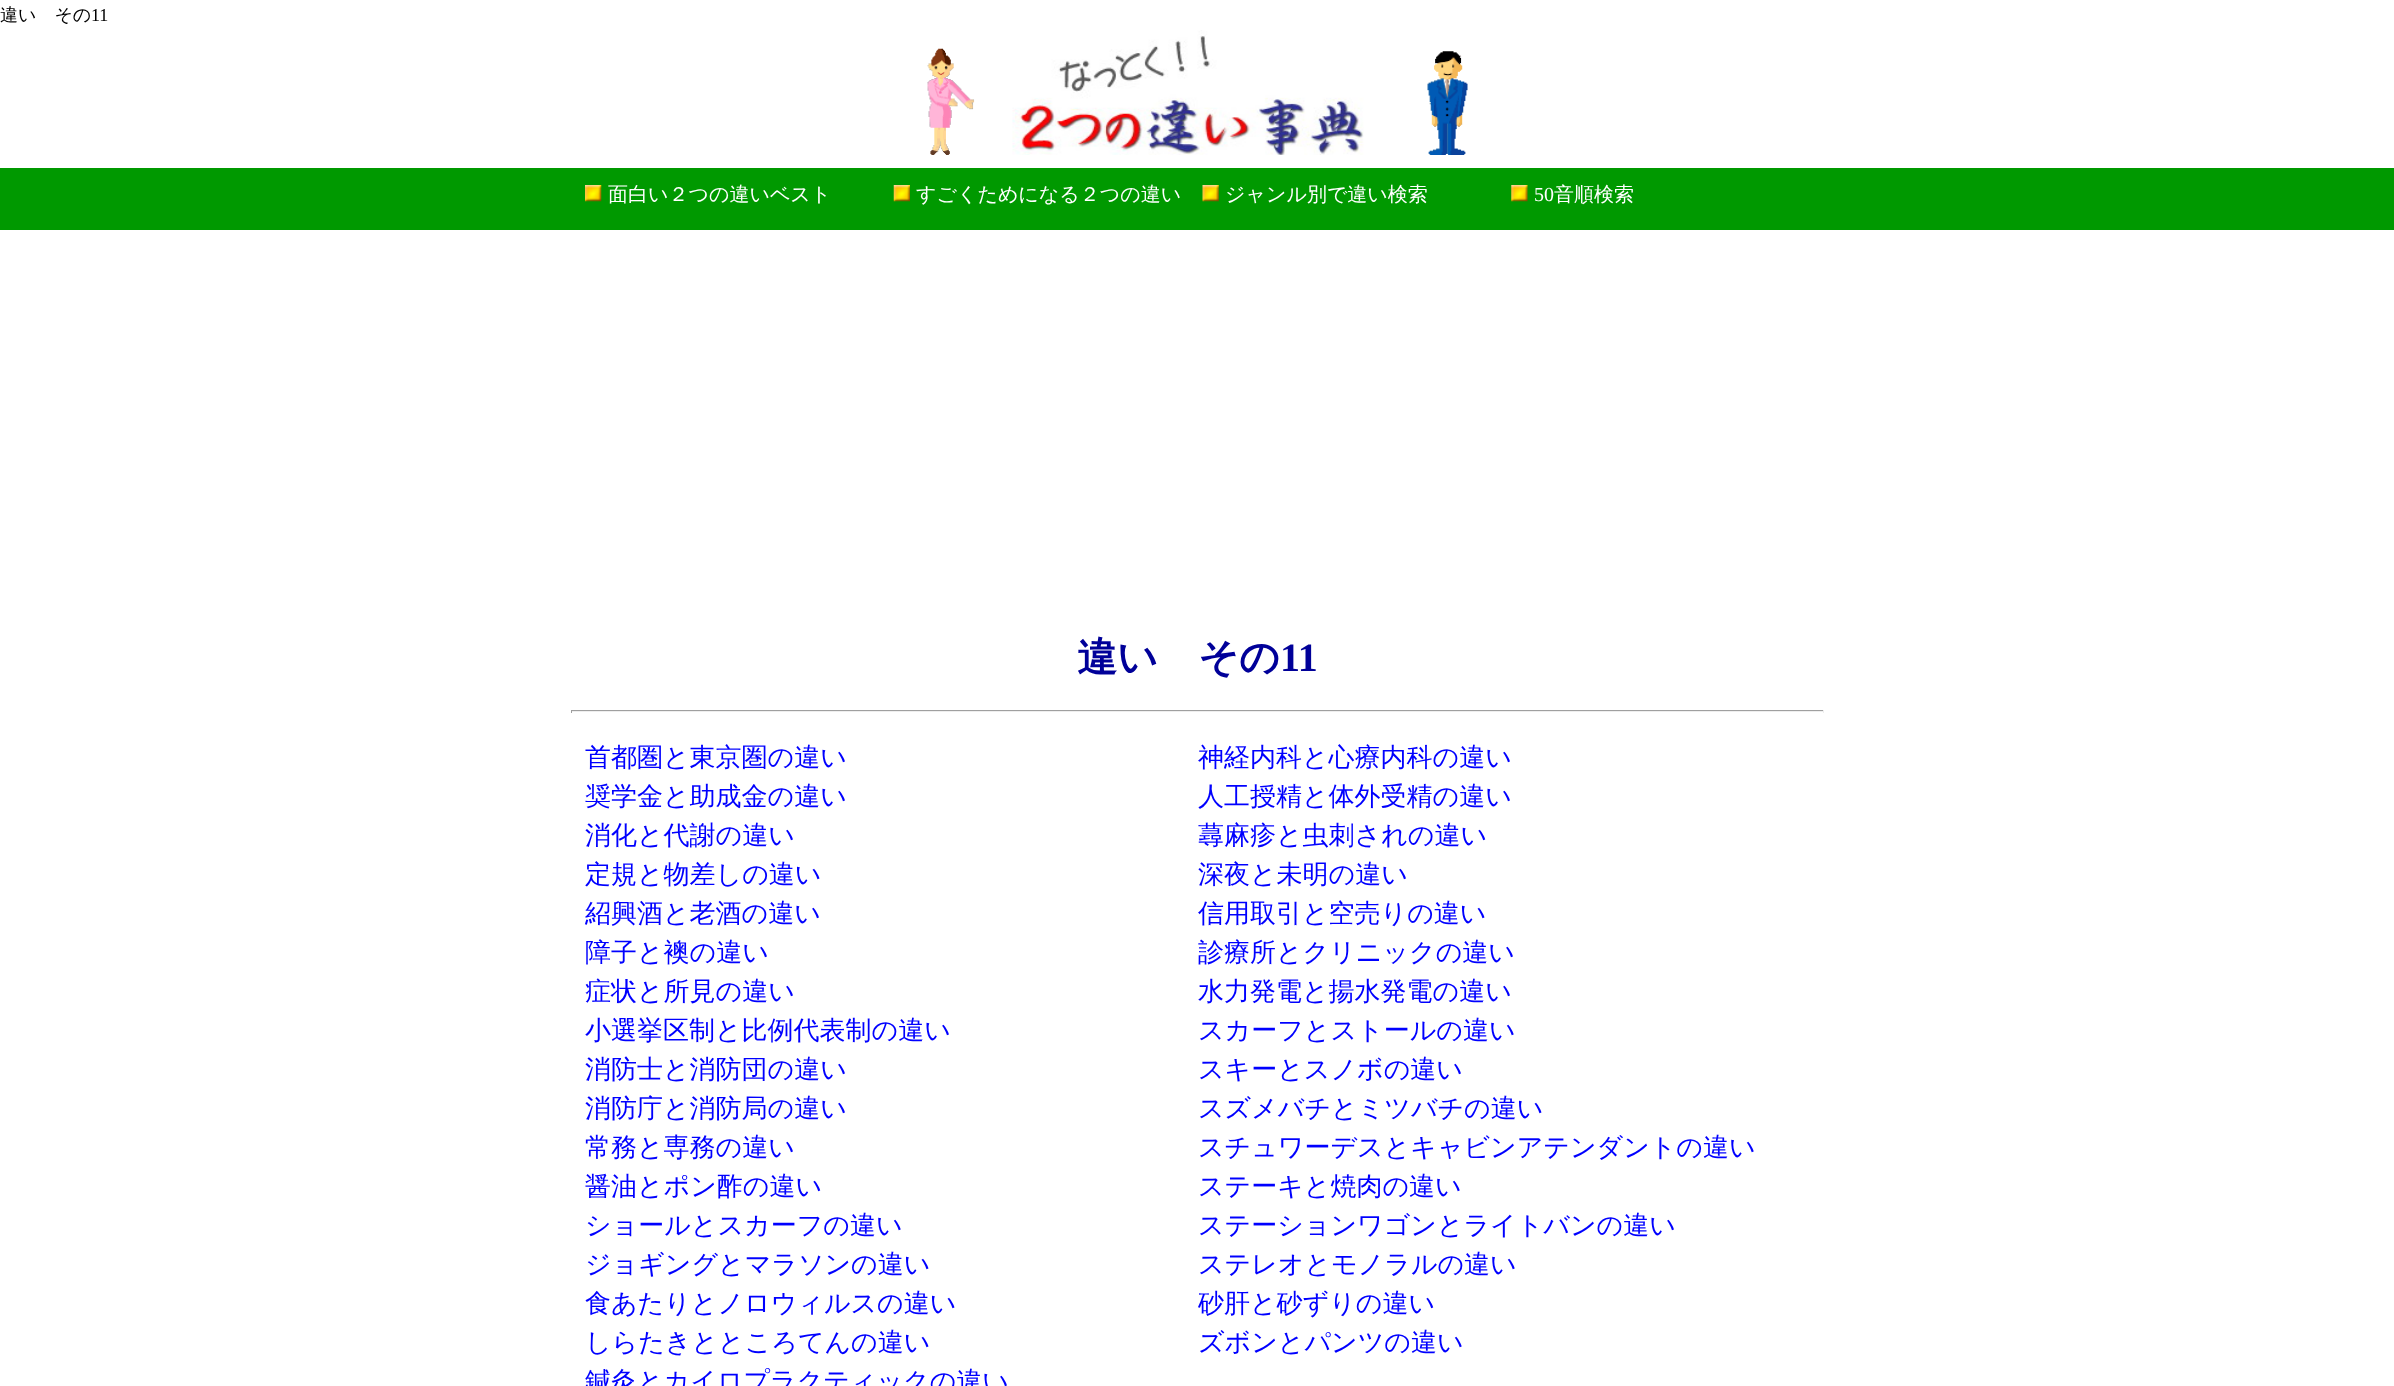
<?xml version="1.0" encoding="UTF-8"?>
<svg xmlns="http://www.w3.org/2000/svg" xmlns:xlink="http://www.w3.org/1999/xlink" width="2394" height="1386">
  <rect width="100%" height="100%" fill="#ffffff" />
  <image x="927" y="48" width="48" height="107" xlink:href="image1.png" />
  <image x="1012" y="30" width="352" height="125" xlink:href="image2.png" />
  <image x="1427" y="51" width="41" height="104" xlink:href="image3.png" />
  <rect y="168" width="2394" height="62" fill="#009900" />
  <image x="585" y="185" width="17" height="17" xlink:href="image4.png" />
  <image x="893" y="185" width="17" height="17" xlink:href="image5.png" />
  <image x="1202" y="185" width="17" height="17" xlink:href="image6.png" />
  <image x="1511" y="185" width="17" height="17" xlink:href="image7.png" />
  <rect x="571" y="710" width="1253" height="1" fill="#9f9f9f" />
  <rect x="1823" y="710" width="1" height="3" fill="#eeeeee" />
  <rect x="571" y="711" width="1253" height="1" fill="#eeeeee" />
  <rect x="571" y="710" width="1" height="3" fill="#9f9f9f" />
  <text x="0" y="21" style="font-family: WenQuanYi Zen Hei; font-size: 18px; font-weight: 500; fill: #000000">違い　その</text>
  <text x="91" y="21" style="font-family: Liberation Serif; font-size: 18px; fill: #000000">11</text>
  <text x="608" y="201" style="font-family: WenQuanYi Zen Hei; font-size: 20px; font-weight: 500; fill: #ffffff">面白い２つの違いベスト</text>
  <text x="916" y="201" style="font-family: WenQuanYi Zen Hei; font-size: 20px; font-weight: 500; fill: #ffffff">すごくためになる２つの違い</text>
  <text x="1225" y="201" style="font-family: WenQuanYi Zen Hei; font-size: 20px; font-weight: 500; fill: #ffffff">ジャンル別で違い検索</text>
  <text x="1534" y="201" style="font-family: Liberation Serif; font-size: 20px; fill: #ffffff">50</text>
  <text x="1554" y="201" style="font-family: WenQuanYi Zen Hei; font-size: 20px; font-weight: 500; fill: #ffffff">音順検索</text>
  <text x="1077" y="671" style="font-family: WenQuanYi Zen Hei; font-size: 40px; font-weight: bold; fill: #000099">違い　その</text>
  <text x="1280" y="671" style="font-family: Liberation Serif; font-size: 40px; font-weight: bold; fill: #000099">11</text>
  <text x="585" y="766" style="font-family: WenQuanYi Zen Hei; font-size: 26px; font-weight: 500; fill: #0000ff">首都圏と東京圏の違い</text>
  <text x="585" y="805" style="font-family: WenQuanYi Zen Hei; font-size: 26px; font-weight: 500; fill: #0000ff">奨学金と助成金の違い</text>
  <text x="585" y="844" style="font-family: WenQuanYi Zen Hei; font-size: 26px; font-weight: 500; fill: #0000ff">消化と代謝の違い</text>
  <text x="585" y="883" style="font-family: WenQuanYi Zen Hei; font-size: 26px; font-weight: 500; fill: #0000ff">定規と物差しの違い</text>
  <text x="585" y="922" style="font-family: WenQuanYi Zen Hei; font-size: 26px; font-weight: 500; fill: #0000ff">紹興酒と老酒の違い</text>
  <text x="585" y="961" style="font-family: WenQuanYi Zen Hei; font-size: 26px; font-weight: 500; fill: #0000ff">障子と襖の違い</text>
  <text x="585" y="1000" style="font-family: WenQuanYi Zen Hei; font-size: 26px; font-weight: 500; fill: #0000ff">症状と所見の違い</text>
  <text x="585" y="1039" style="font-family: WenQuanYi Zen Hei; font-size: 26px; font-weight: 500; fill: #0000ff">小選挙区制と比例代表制の違い</text>
  <text x="585" y="1078" style="font-family: WenQuanYi Zen Hei; font-size: 26px; font-weight: 500; fill: #0000ff">消防士と消防団の違い</text>
  <text x="585" y="1117" style="font-family: WenQuanYi Zen Hei; font-size: 26px; font-weight: 500; fill: #0000ff">消防庁と消防局の違い</text>
  <text x="585" y="1156" style="font-family: WenQuanYi Zen Hei; font-size: 26px; font-weight: 500; fill: #0000ff">常務と専務の違い</text>
  <text x="585" y="1195" style="font-family: WenQuanYi Zen Hei; font-size: 26px; font-weight: 500; fill: #0000ff">醤油とポン酢の違い</text>
  <text x="585" y="1234" style="font-family: WenQuanYi Zen Hei; font-size: 26px; font-weight: 500; fill: #0000ff">ショールとスカーフの違い</text>
  <text x="585" y="1273" style="font-family: WenQuanYi Zen Hei; font-size: 26px; font-weight: 500; fill: #0000ff">ジョギングとマラソンの違い</text>
  <text x="585" y="1312" style="font-family: WenQuanYi Zen Hei; font-size: 26px; font-weight: 500; fill: #0000ff">食あたりとノロウィルスの違い</text>
  <text x="585" y="1351" style="font-family: WenQuanYi Zen Hei; font-size: 26px; font-weight: 500; fill: #0000ff">しらたきとところてんの違い</text>
  <text x="585" y="1390" style="font-family: WenQuanYi Zen Hei; font-size: 26px; font-weight: 500; fill: #0000ff">鍼灸とカイロプラクティックの違い</text>
  <text x="1198" y="766" style="font-family: WenQuanYi Zen Hei; font-size: 26px; font-weight: 500; fill: #0000ff">神経内科と心療内科の違い</text>
  <text x="1198" y="805" style="font-family: WenQuanYi Zen Hei; font-size: 26px; font-weight: 500; fill: #0000ff">人工授精と体外受精の違い</text>
  <text x="1198" y="844" style="font-family: WenQuanYi Zen Hei; font-size: 26px; font-weight: 500; fill: #0000ff">蕁麻疹と虫刺されの違い</text>
  <text x="1198" y="883" style="font-family: WenQuanYi Zen Hei; font-size: 26px; font-weight: 500; fill: #0000ff">深夜と未明の違い</text>
  <text x="1198" y="922" style="font-family: WenQuanYi Zen Hei; font-size: 26px; font-weight: 500; fill: #0000ff">信用取引と空売りの違い</text>
  <text x="1198" y="961" style="font-family: WenQuanYi Zen Hei; font-size: 26px; font-weight: 500; fill: #0000ff">診療所とクリニックの違い</text>
  <text x="1198" y="1000" style="font-family: WenQuanYi Zen Hei; font-size: 26px; font-weight: 500; fill: #0000ff">水力発電と揚水発電の違い</text>
  <text x="1198" y="1039" style="font-family: WenQuanYi Zen Hei; font-size: 26px; font-weight: 500; fill: #0000ff">スカーフとストールの違い</text>
  <text x="1198" y="1078" style="font-family: WenQuanYi Zen Hei; font-size: 26px; font-weight: 500; fill: #0000ff">スキーとスノボの違い</text>
  <text x="1198" y="1117" style="font-family: WenQuanYi Zen Hei; font-size: 26px; font-weight: 500; fill: #0000ff">スズメバチとミツバチの違い</text>
  <text x="1198" y="1156" style="font-family: WenQuanYi Zen Hei; font-size: 26px; font-weight: 500; fill: #0000ff">スチュワーデスとキャビンアテンダントの違い</text>
  <text x="1198" y="1195" style="font-family: WenQuanYi Zen Hei; font-size: 26px; font-weight: 500; fill: #0000ff">ステーキと焼肉の違い</text>
  <text x="1198" y="1234" style="font-family: WenQuanYi Zen Hei; font-size: 26px; font-weight: 500; fill: #0000ff">ステーションワゴンとライトバンの違い</text>
  <text x="1198" y="1273" style="font-family: WenQuanYi Zen Hei; font-size: 26px; font-weight: 500; fill: #0000ff">ステレオとモノラルの違い</text>
  <text x="1198" y="1312" style="font-family: WenQuanYi Zen Hei; font-size: 26px; font-weight: 500; fill: #0000ff">砂肝と砂ずりの違い</text>
  <text x="1198" y="1351" style="font-family: WenQuanYi Zen Hei; font-size: 26px; font-weight: 500; fill: #0000ff">ズボンとパンツの違い</text>
</svg>
